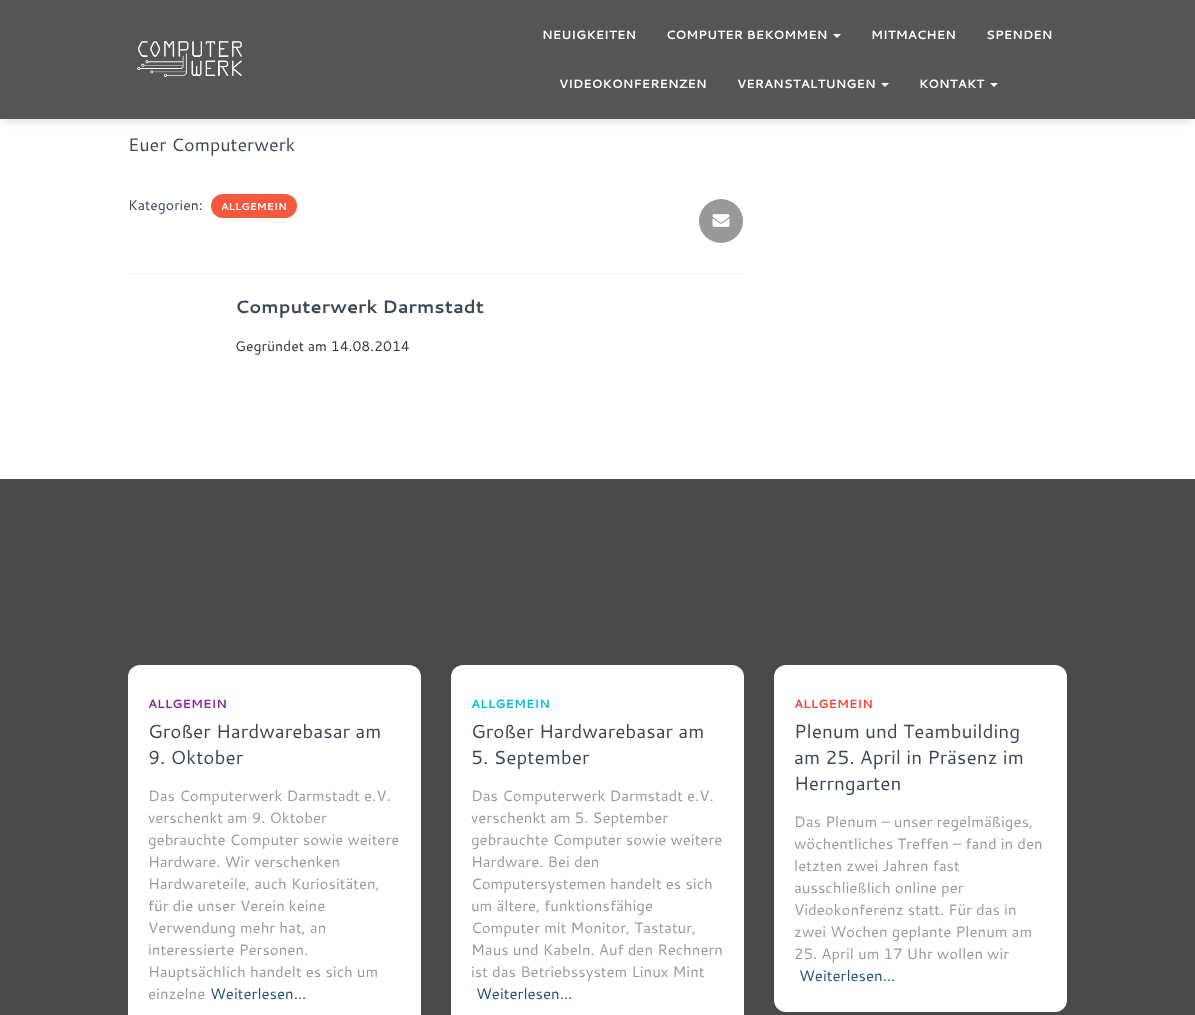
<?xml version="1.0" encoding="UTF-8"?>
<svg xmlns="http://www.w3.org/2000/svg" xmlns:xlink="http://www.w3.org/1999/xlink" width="1195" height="1015">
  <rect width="100%" height="100%" fill="#494949" />
  <rect y="119" width="1195" height="360" fill="#ffffff" />
  <rect x="4" y="10" width="1187" height="111" fill="#000000" fill-opacity="0.15" filter="blur(5px)" />
  <rect width="1195" height="119" fill="#555555" />
  <image x="137" y="41" width="105" height="36" xlink:href="image1.png" />
  <path d="M 833 34 h 8 l -4 4 z" fill="#ffffff" />
  <path d="M 881 83 h 8 l -4 4 z" fill="#ffffff" />
  <path d="M 990 83 h 8 l -4 4 z" fill="#ffffff" />
  <rect x="211" y="194" width="86" height="24" rx="12" fill="#f5593d" />
  <circle cx="721" cy="221" r="22" fill="#999999" />
  <image x="712" y="214" width="18" height="13" xlink:href="image2.png" />
  <rect x="128" y="273" width="616" height="1" fill="#eeeeee" />
  <rect x="128" y="665" width="293" height="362" rx="12" fill="#ffffff" />
  <rect x="451" y="665" width="293" height="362" rx="12" fill="#ffffff" />
  <rect x="774" y="665" width="293" height="347" rx="12" fill="#ffffff" />
  <text x="542" y="39" style="font-family: Cantarell; font-size: 12px; font-weight: bold; fill: #ffffff">NEUIGKEITEN</text>
  <text x="666" y="39" style="font-family: Cantarell; font-size: 12px; font-weight: bold; fill: #ffffff">COMPUTER BEKOMMEN</text>
  <text x="871" y="39" style="font-family: Cantarell; font-size: 12px; font-weight: bold; fill: #ffffff">MITMACHEN</text>
  <text x="986" y="39" style="font-family: Cantarell; font-size: 12px; font-weight: bold; fill: #ffffff">SPENDEN</text>
  <text x="559" y="88" style="font-family: Cantarell; font-size: 12px; font-weight: bold; fill: #ffffff">VIDEOKONFERENZEN</text>
  <text x="737" y="88" style="font-family: Cantarell; font-size: 12px; font-weight: bold; fill: #ffffff">VERANSTALTUNGEN</text>
  <text x="919" y="88" style="font-family: Cantarell; font-size: 12px; font-weight: bold; fill: #ffffff">KONTAKT</text>
  <text x="128" y="151" style="font-family: Cantarell; font-size: 18px; fill: #3c4858">Euer Computerwerk</text>
  <text x="128" y="210" style="font-family: Cantarell; font-size: 14px; fill: #3c4858">Kategorien:</text>
  <text x="221" y="210" style="font-family: Cantarell; font-size: 10px; font-weight: bold; fill: #ffffff">ALLGEMEIN</text>
  <text x="235" y="313" style="font-family: Cantarell; font-size: 18px; font-weight: bold; fill: #3c4858">Computerwerk Darmstadt</text>
  <text x="235" y="351" style="font-family: Cantarell; font-size: 14px; fill: #333333">Gegründet am 14.08.2014</text>
  <text x="148" y="708" style="font-family: Cantarell; font-size: 12px; font-weight: bold; fill: #89229b">ALLGEMEIN</text>
  <text x="148" y="738" style="font-family: Cantarell; font-size: 19px; fill: #3c4858">Großer Hardwarebasar am</text>
  <text x="148" y="764" style="font-family: Cantarell; font-size: 19px; fill: #3c4858">9. Oktober</text>
  <text x="148" y="801" style="font-family: Cantarell; font-size: 15px; fill: #9a9a9a">Das Computerwerk Darmstadt e.V.</text>
  <text x="148" y="823" style="font-family: Cantarell; font-size: 15px; fill: #9a9a9a">verschenkt am 9. Oktober</text>
  <text x="148" y="845" style="font-family: Cantarell; font-size: 15px; fill: #9a9a9a">gebrauchte Computer sowie weitere</text>
  <text x="148" y="867" style="font-family: Cantarell; font-size: 15px; fill: #9a9a9a">Hardware. Wir verschenken</text>
  <text x="148" y="889" style="font-family: Cantarell; font-size: 15px; fill: #9a9a9a">Hardwareteile, auch Kuriositäten,</text>
  <text x="148" y="911" style="font-family: Cantarell; font-size: 15px; fill: #9a9a9a">für die unser Verein keine</text>
  <text x="148" y="933" style="font-family: Cantarell; font-size: 15px; fill: #9a9a9a">Verwendung mehr hat, an</text>
  <text x="148" y="955" style="font-family: Cantarell; font-size: 15px; fill: #9a9a9a">interessierte Personen.</text>
  <text x="148" y="977" style="font-family: Cantarell; font-size: 15px; fill: #9a9a9a">Hauptsächlich handelt es sich um</text>
  <text x="148" y="999" style="font-family: Cantarell; font-size: 15px; fill: #9a9a9a">einzelne</text>
  <text x="210" y="999" style="font-family: Cantarell; font-size: 15px; fill: #23527c">Weiterlesen…</text>
  <text x="471" y="708" style="font-family: Cantarell; font-size: 12px; font-weight: bold; fill: #00bcd4">ALLGEMEIN</text>
  <text x="471" y="738" style="font-family: Cantarell; font-size: 19px; fill: #3c4858">Großer Hardwarebasar am</text>
  <text x="471" y="764" style="font-family: Cantarell; font-size: 19px; fill: #3c4858">5. September</text>
  <text x="471" y="801" style="font-family: Cantarell; font-size: 15px; fill: #9a9a9a">Das Computerwerk Darmstadt e.V.</text>
  <text x="471" y="823" style="font-family: Cantarell; font-size: 15px; fill: #9a9a9a">verschenkt am 5. September</text>
  <text x="471" y="845" style="font-family: Cantarell; font-size: 15px; fill: #9a9a9a">gebrauchte Computer sowie weitere</text>
  <text x="471" y="867" style="font-family: Cantarell; font-size: 15px; fill: #9a9a9a">Hardware. Bei den</text>
  <text x="471" y="889" style="font-family: Cantarell; font-size: 15px; fill: #9a9a9a">Computersystemen handelt es sich</text>
  <text x="471" y="911" style="font-family: Cantarell; font-size: 15px; fill: #9a9a9a">um ältere, funktionsfähige</text>
  <text x="471" y="933" style="font-family: Cantarell; font-size: 15px; fill: #9a9a9a">Computer mit Monitor, Tastatur,</text>
  <text x="471" y="955" style="font-family: Cantarell; font-size: 15px; fill: #9a9a9a">Maus und Kabeln. Auf den Rechnern</text>
  <text x="471" y="977" style="font-family: Cantarell; font-size: 15px; fill: #9a9a9a">ist das Betriebssystem Linux Mint</text>
  <text x="476" y="999" style="font-family: Cantarell; font-size: 15px; fill: #23527c">Weiterlesen…</text>
  <text x="794" y="708" style="font-family: Cantarell; font-size: 12px; font-weight: bold; fill: #f44336">ALLGEMEIN</text>
  <text x="794" y="738" style="font-family: Cantarell; font-size: 19px; fill: #3c4858">Plenum und Teambuilding</text>
  <text x="794" y="764" style="font-family: Cantarell; font-size: 19px; fill: #3c4858">am 25. April in Präsenz im</text>
  <text x="794" y="790" style="font-family: Cantarell; font-size: 19px; fill: #3c4858">Herrngarten</text>
  <text x="794" y="827" style="font-family: Cantarell; font-size: 15px; fill: #9a9a9a">Das Plenum – unser regelmäßiges,</text>
  <text x="794" y="849" style="font-family: Cantarell; font-size: 15px; fill: #9a9a9a">wöchentliches Treffen – fand in den</text>
  <text x="794" y="871" style="font-family: Cantarell; font-size: 15px; fill: #9a9a9a">letzten zwei Jahren fast</text>
  <text x="794" y="893" style="font-family: Cantarell; font-size: 15px; fill: #9a9a9a">ausschließlich online per</text>
  <text x="794" y="915" style="font-family: Cantarell; font-size: 15px; fill: #9a9a9a">Videokonferenz statt. Für das in</text>
  <text x="794" y="937" style="font-family: Cantarell; font-size: 15px; fill: #9a9a9a">zwei Wochen geplante Plenum am</text>
  <text x="794" y="959" style="font-family: Cantarell; font-size: 15px; fill: #9a9a9a">25. April um 17 Uhr wollen wir</text>
  <text x="799" y="981" style="font-family: Cantarell; font-size: 15px; fill: #23527c">Weiterlesen…</text>
</svg>
